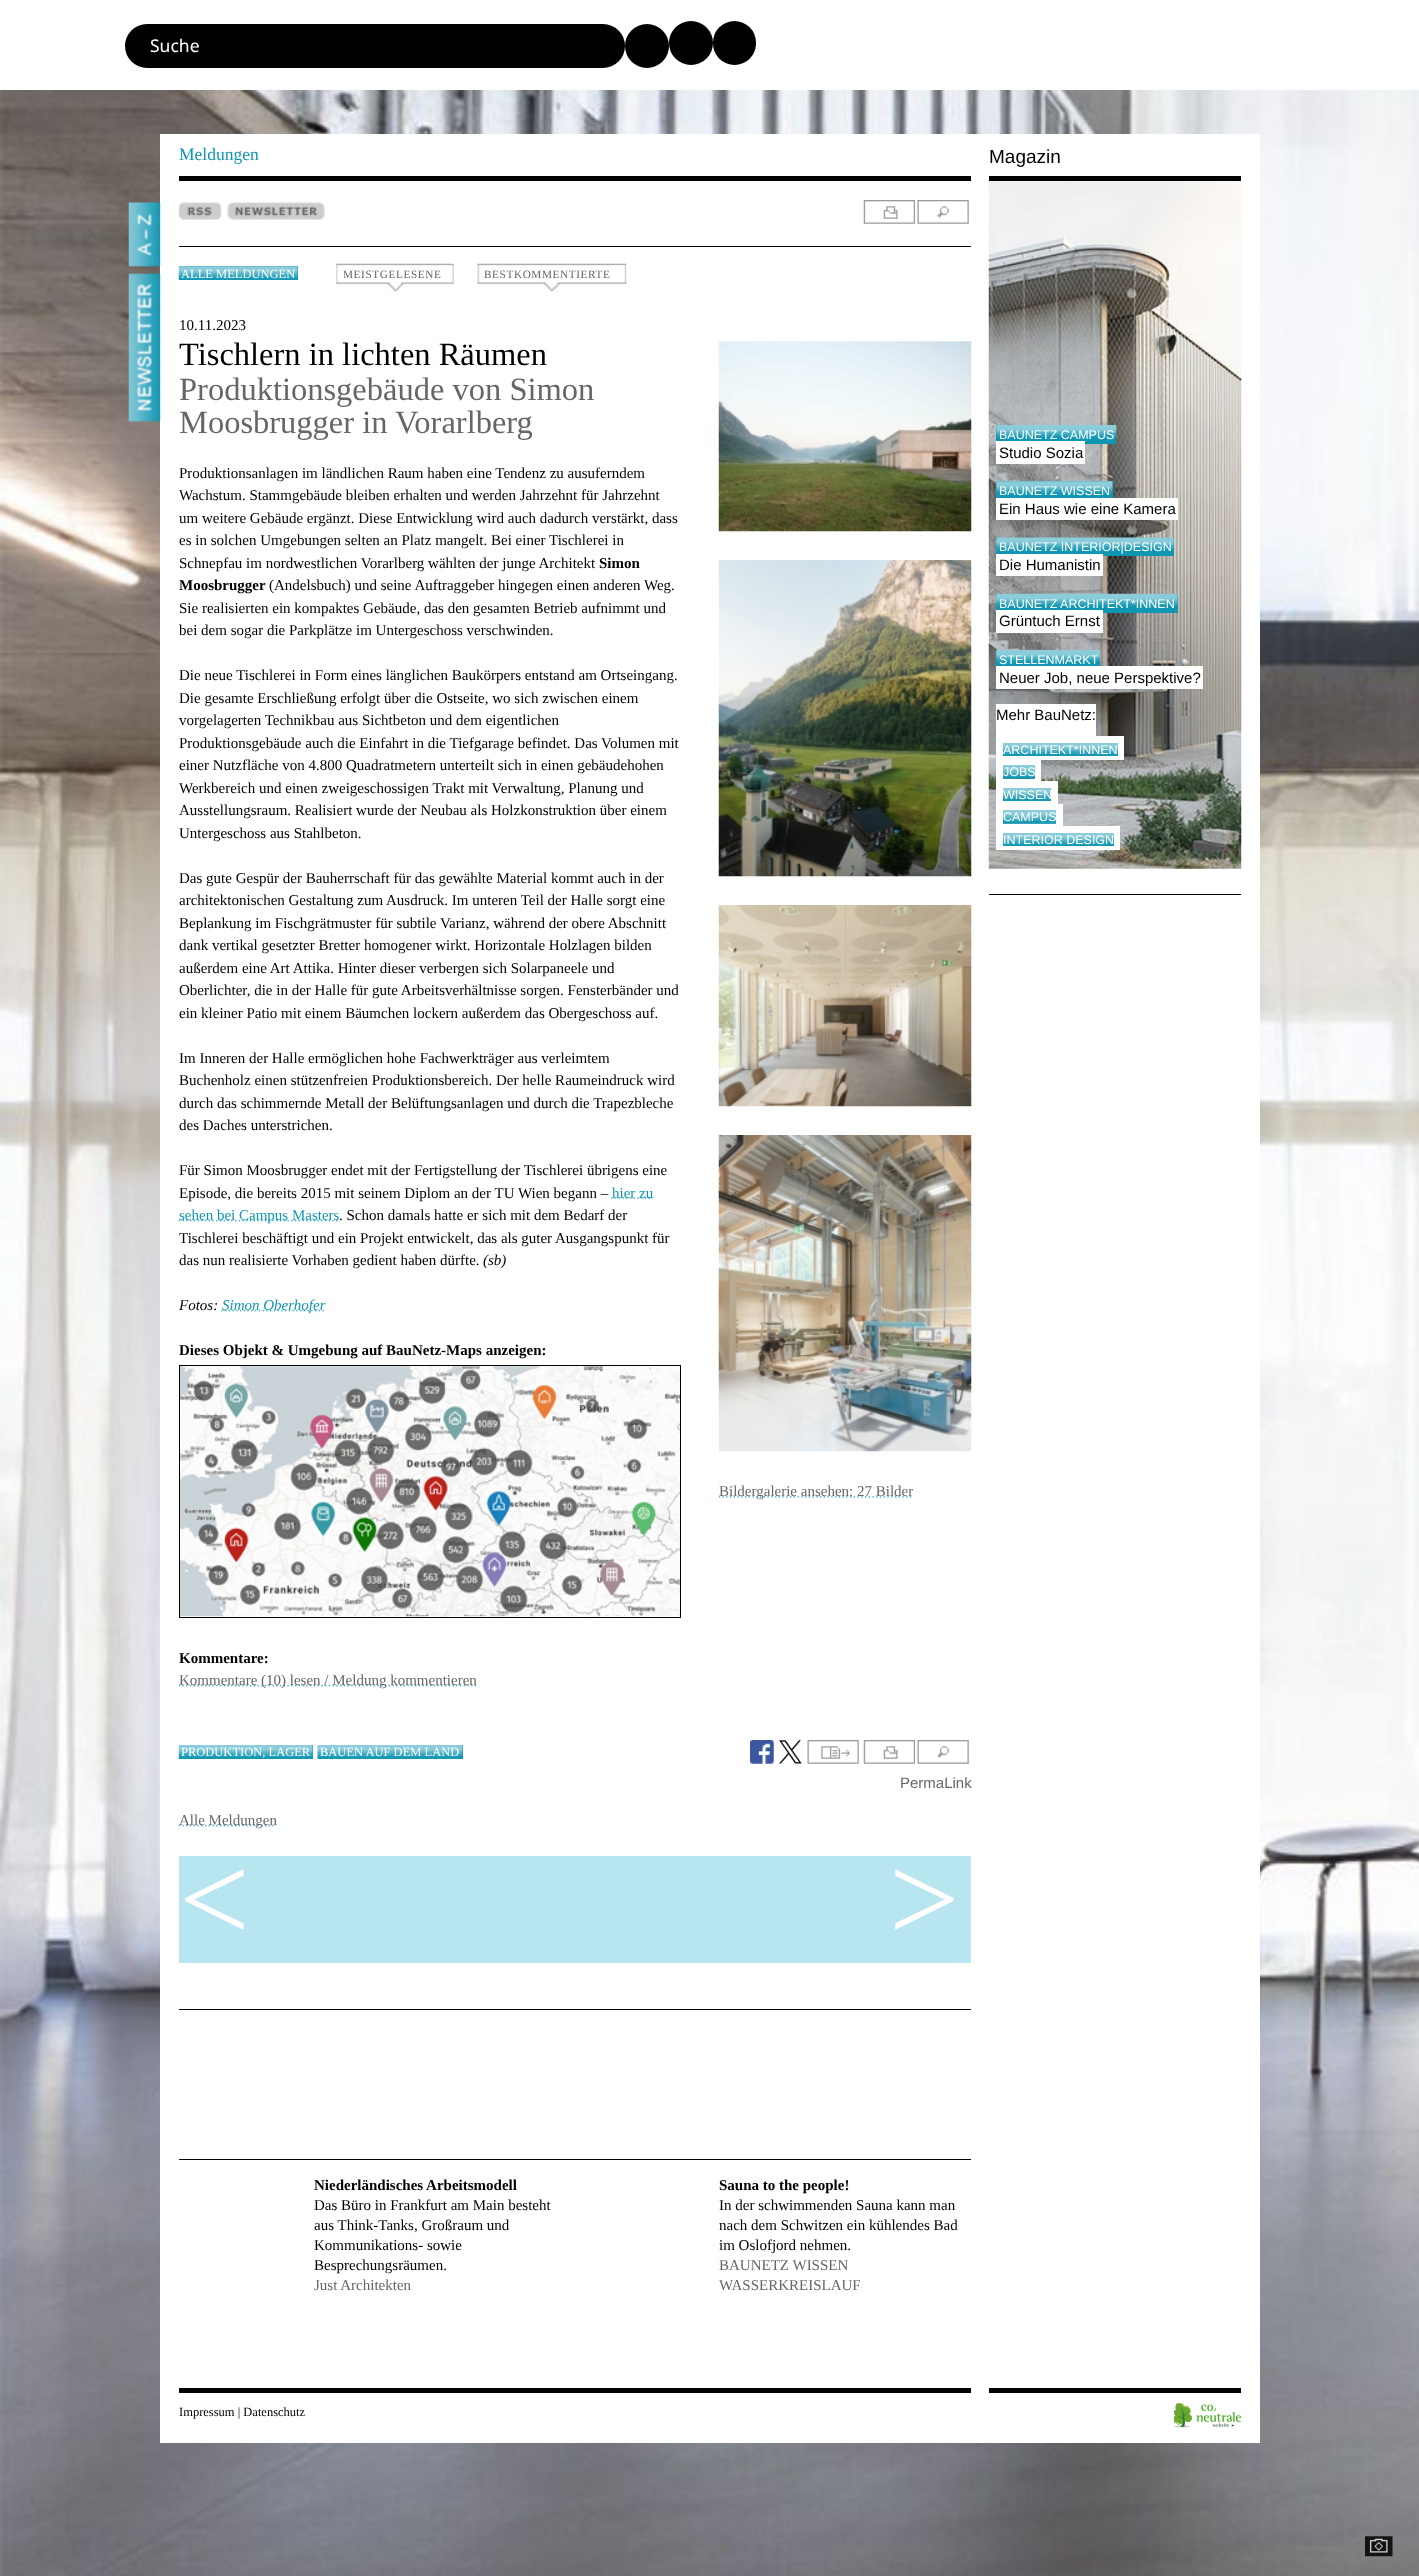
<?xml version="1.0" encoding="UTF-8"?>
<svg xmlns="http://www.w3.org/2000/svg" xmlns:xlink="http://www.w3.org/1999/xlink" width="1419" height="2576">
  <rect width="100%" height="100%" fill="#ffffff" />
  <image x="0" y="90" width="1419" height="2486" xlink:href="image1.png" />
  <rect x="125" y="24" width="500" height="44" rx="22" fill="#000000" />
  <circle cx="647" cy="46" r="22" fill="#000000" />
  <circle cx="691" cy="43" r="22" fill="#000000" />
  <rect x="713" y="21" width="43" height="44" rx="21.5" fill="#000000" />
  <rect x="160" y="134" width="1100" height="2309" fill="#ffffff" />
  <rect x="179" y="176" width="792" height="5" fill="#000000" />
  <rect x="989" y="176" width="252" height="5" fill="#000000" />
  <image x="128" y="202" width="33" height="65" xlink:href="image2.png" />
  <image x="128" y="273" width="33" height="149" xlink:href="image3.png" />
  <rect x="179" y="246" width="792" height="1" fill="#000000" />
  <image x="178" y="202" width="44" height="18" xlink:href="image4.png" />
  <image x="227" y="202" width="98" height="18" xlink:href="image5.png" />
  <image x="863" y="200" width="52" height="24" xlink:href="image6.png" />
  <image x="917" y="200" width="52" height="24" xlink:href="image7.png" />
  <rect x="179" y="266" width="119" height="14" fill="#0f96b3" />
  <image x="178" y="266" width="120" height="14" xlink:href="image8.png" />
  <image x="336" y="263" width="118" height="29" xlink:href="image9.png" />
  <image x="477" y="263" width="150" height="29" xlink:href="image10.png" />
  <image x="221" y="1309" width="103" height="3" xlink:href="image12.png" />
  <rect x="179.5" y="1365.5" width="501" height="252" fill="none" stroke="#000000" />
  <image x="180" y="1366" width="500" height="251" xlink:href="image13.png" />
  <image x="178" y="1684" width="299" height="3" xlink:href="image14.png" />
  <image x="718" y="341" width="254" height="191" xlink:href="image15.png" />
  <image x="718" y="560" width="254" height="317" xlink:href="image16.png" />
  <image x="718" y="905" width="254" height="202" xlink:href="image17.png" />
  <image x="718" y="1135" width="254" height="317" xlink:href="image18.png" />
  <image x="718" y="1496" width="194" height="2" xlink:href="image19.png" />
  <rect x="179" y="1745" width="134" height="14" fill="#0f96b3" />
  <image x="178" y="1745" width="135" height="14" xlink:href="image20.png" />
  <rect x="318" y="1745" width="145" height="14" fill="#0f96b3" />
  <image x="317" y="1745" width="146" height="14" xlink:href="image21.png" />
  <image x="750" y="1740" width="24" height="24" xlink:href="image22.png" />
  <image x="779" y="1740" width="23" height="24" xlink:href="image23.png" />
  <image x="807" y="1740" width="52" height="24" xlink:href="image24.png" />
  <image x="863" y="1740" width="52" height="24" xlink:href="image6.png" />
  <image x="917" y="1740" width="52" height="24" xlink:href="image7.png" />
  <image x="178" y="1824" width="99" height="3" xlink:href="image25.png" />
  <rect x="179" y="1856" width="792" height="107" fill="#b7e6f0" />
  <rect x="179" y="2009" width="792" height="1" fill="#000000" />
  <rect x="179" y="2159" width="792" height="1" fill="#000000" />
  <image x="988" y="181" width="254" height="688" xlink:href="image26.png" />
  <rect x="996" y="425" width="120" height="19" fill="#0f96b3" />
  <image x="996" y="425" width="121" height="14" xlink:href="image27.png" />
  <rect x="996" y="441" width="89" height="23" fill="#ffffff" />
  <rect x="996" y="481" width="117" height="17" fill="#0f96b3" />
  <image x="996" y="481" width="117" height="14" xlink:href="image28.png" />
  <rect x="996" y="498" width="182" height="22" fill="#ffffff" />
  <rect x="996" y="538" width="178" height="18" fill="#0f96b3" />
  <image x="996" y="537" width="178" height="14" xlink:href="image29.png" />
  <rect x="996" y="554" width="107" height="22" fill="#ffffff" />
  <rect x="996" y="594" width="182" height="19" fill="#0f96b3" />
  <image x="996" y="593" width="182" height="14" xlink:href="image30.png" />
  <rect x="996" y="610" width="107" height="23" fill="#ffffff" />
  <rect x="996" y="650" width="104" height="16" fill="#0f96b3" />
  <image x="996" y="650" width="104" height="13" xlink:href="image31.png" />
  <rect x="996" y="666" width="207" height="23" fill="#ffffff" />
  <rect x="996" y="704" width="100" height="32" fill="#ffffff" />
  <image x="1003" y="743" width="115" height="13" xlink:href="image32.png" />
  <rect x="996" y="736" width="128" height="7" fill="#ffffff" />
  <rect x="1118" y="736" width="6" height="24" fill="#ffffff" />
  <rect x="996" y="756" width="128" height="4" fill="#ffffff" />
  <rect x="996" y="736" width="7" height="24" fill="#ffffff" />
  <image x="1003" y="765" width="39" height="14" xlink:href="image33.png" />
  <rect x="996" y="760" width="45" height="5" fill="#ffffff" />
  <rect x="1035" y="759" width="6" height="24" fill="#ffffff" />
  <rect x="996" y="779" width="45" height="2" fill="#ffffff" />
  <rect x="996" y="759" width="7" height="24" fill="#ffffff" />
  <image x="1003" y="788" width="48" height="13" xlink:href="image34.png" />
  <rect x="996" y="781" width="62" height="7" fill="#ffffff" />
  <rect x="1051" y="781" width="7" height="24" fill="#ffffff" />
  <rect x="996" y="801" width="62" height="3" fill="#ffffff" />
  <rect x="996" y="781" width="7" height="24" fill="#ffffff" />
  <image x="1003" y="810" width="53" height="14" xlink:href="image35.png" />
  <rect x="996" y="804" width="67" height="6" fill="#ffffff" />
  <rect x="1056" y="804" width="7" height="24" fill="#ffffff" />
  <rect x="996" y="824" width="67" height="2" fill="#ffffff" />
  <rect x="996" y="804" width="7" height="24" fill="#ffffff" />
  <image x="1003" y="833" width="111" height="13" xlink:href="image36.png" />
  <rect x="996" y="826" width="124" height="7" fill="#ffffff" />
  <rect x="1114" y="826" width="6" height="24" fill="#ffffff" />
  <rect x="996" y="846" width="124" height="4" fill="#ffffff" />
  <rect x="996" y="826" width="7" height="24" fill="#ffffff" />
  <rect x="989" y="894" width="252" height="1" fill="#000000" />
  <rect x="179" y="2388" width="792" height="5" fill="#000000" />
  <rect x="989" y="2388" width="252" height="5" fill="#000000" />
  <image x="1174" y="2403" width="67" height="25" xlink:href="image37.png" />
  <image x="1365" y="2536" width="28" height="21" xlink:href="image38.png" />
  <text x="150" y="52" style="font-family: Noto Sans; font-size: 17.5px; fill: #ffffff">Suche</text>
  <text x="179" y="160" style="font-family: Liberation Serif; font-size: 17.5px; fill: #0f96b3">Meldungen</text>
  <text x="989" y="163" style="font-family: Liberation Sans; font-size: 19px; fill: #000000">Magazin</text>
  <text x="181" y="278" style="font-family: Liberation Serif; font-size: 12.5px; fill: #ffffff">ALLE MELDUNGEN</text>
  <text x="343" y="278" style="font-family: Liberation Serif; font-size: 11.25px; letter-spacing: 0.6px; fill: #666666">MEISTGELESENE</text>
  <text x="484" y="278" style="font-family: Liberation Serif; font-size: 11.25px; letter-spacing: 0.6px; fill: #666666">BESTKOMMENTIERTE</text>
  <text x="179" y="330" style="font-family: Liberation Serif; font-size: 15px; fill: #000000">10.11.2023</text>
  <text x="179" y="365" style="font-family: Liberation Serif; font-size: 32.5px; fill: #000000">Tischlern in lichten Räumen</text>
  <text x="179" y="400" style="font-family: Liberation Serif; font-size: 32.5px; fill: #666666">Produktionsgebäude von Simon</text>
  <text x="179" y="433" style="font-family: Liberation Serif; font-size: 32.5px; fill: #666666">Moosbrugger in Vorarlberg</text>
  <text x="179" y="478" style="font-family: Liberation Serif; font-size: 15px; fill: #000000">Produktionsanlagen im ländlichen Raum haben eine Tendenz zu ausuferndem</text>
  <text x="179" y="500" style="font-family: Liberation Serif; font-size: 15px; fill: #000000">Wachstum. Stammgebäude bleiben erhalten und werden Jahrzehnt für Jahrzehnt</text>
  <text x="179" y="523" style="font-family: Liberation Serif; font-size: 15px; fill: #000000">um weitere Gebäude ergänzt. Diese Entwicklung wird auch dadurch verstärkt, dass</text>
  <text x="179" y="545" style="font-family: Liberation Serif; font-size: 15px; fill: #000000">es in solchen Umgebungen selten an Platz mangelt. Bei einer Tischlerei in</text>
  <text x="179" y="568" style="font-family: Liberation Serif; font-size: 15px; fill: #000000">Schnepfau im nordwestlichen Vorarlberg wählten der junge Architekt</text>
  <text x="599" y="568" style="font-family: Liberation Serif; font-size: 15px; font-weight: bold; fill: #000000">Simon</text>
  <text x="179" y="590" style="font-family: Liberation Serif; font-size: 15px; font-weight: bold; fill: #000000">Moosbrugger</text>
  <text x="269" y="590" style="font-family: Liberation Serif; font-size: 15px; fill: #000000">(Andelsbuch) und seine Auftraggeber hingegen einen anderen Weg.</text>
  <text x="179" y="613" style="font-family: Liberation Serif; font-size: 15px; fill: #000000">Sie realisierten ein kompaktes Gebäude, das den gesamten Betrieb aufnimmt und</text>
  <text x="179" y="635" style="font-family: Liberation Serif; font-size: 15px; fill: #000000">bei dem sogar die Parkplätze im Untergeschoss verschwinden.</text>
  <text x="179" y="680" style="font-family: Liberation Serif; font-size: 15px; fill: #000000">Die neue Tischlerei in Form eines länglichen Baukörpers entstand am Ortseingang.</text>
  <text x="179" y="703" style="font-family: Liberation Serif; font-size: 15px; fill: #000000">Die gesamte Erschließung erfolgt über die Ostseite, wo sich zwischen einem</text>
  <text x="179" y="725" style="font-family: Liberation Serif; font-size: 15px; fill: #000000">vorgelagerten Technikbau aus Sichtbeton und dem eigentlichen</text>
  <text x="179" y="748" style="font-family: Liberation Serif; font-size: 15px; fill: #000000">Produktionsgebäude auch die Einfahrt in die Tiefgarage befindet. Das Volumen mit</text>
  <text x="179" y="770" style="font-family: Liberation Serif; font-size: 15px; fill: #000000">einer Nutzfläche von 4.800 Quadratmetern unterteilt sich in einen gebäudehohen</text>
  <text x="179" y="793" style="font-family: Liberation Serif; font-size: 15px; fill: #000000">Werkbereich und einen zweigeschossigen Trakt mit Verwaltung, Planung und</text>
  <text x="179" y="815" style="font-family: Liberation Serif; font-size: 15px; fill: #000000">Ausstellungsraum. Realisiert wurde der Neubau als Holzkonstruktion über einem</text>
  <text x="179" y="838" style="font-family: Liberation Serif; font-size: 15px; fill: #000000">Untergeschoss aus Stahlbeton.</text>
  <text x="179" y="883" style="font-family: Liberation Serif; font-size: 15px; fill: #000000">Das gute Gespür der Bauherrschaft für das gewählte Material kommt auch in der</text>
  <text x="179" y="905" style="font-family: Liberation Serif; font-size: 15px; fill: #000000">architektonischen Gestaltung zum Ausdruck. Im unteren Teil der Halle sorgt eine</text>
  <text x="179" y="928" style="font-family: Liberation Serif; font-size: 15px; fill: #000000">Beplankung im Fischgrätmuster für subtile Varianz, während der obere Abschnitt</text>
  <text x="179" y="950" style="font-family: Liberation Serif; font-size: 15px; fill: #000000">dank vertikal gesetzter Bretter homogener wirkt. Horizontale Holzlagen bilden</text>
  <text x="179" y="973" style="font-family: Liberation Serif; font-size: 15px; fill: #000000">außerdem eine Art Attika. Hinter dieser verbergen sich Solarpaneele und</text>
  <text x="179" y="995" style="font-family: Liberation Serif; font-size: 15px; fill: #000000">Oberlichter, die in der Halle für gute Arbeitsverhältnisse sorgen. Fensterbänder und</text>
  <text x="179" y="1018" style="font-family: Liberation Serif; font-size: 15px; fill: #000000">ein kleiner Patio mit einem Bäumchen lockern außerdem das Obergeschoss auf.</text>
  <text x="179" y="1063" style="font-family: Liberation Serif; font-size: 15px; fill: #000000">Im Inneren der Halle ermöglichen hohe Fachwerkträger aus verleimtem</text>
  <text x="179" y="1085" style="font-family: Liberation Serif; font-size: 15px; fill: #000000">Buchenholz einen stützenfreien Produktionsbereich. Der helle Raumeindruck wird</text>
  <text x="179" y="1108" style="font-family: Liberation Serif; font-size: 15px; fill: #000000">durch das schimmernde Metall der Belüftungsanlagen und durch die Trapezbleche</text>
  <text x="179" y="1130" style="font-family: Liberation Serif; font-size: 15px; fill: #000000">des Daches unterstrichen.</text>
  <text x="179" y="1175" style="font-family: Liberation Serif; font-size: 15px; fill: #000000">Für Simon Moosbrugger endet mit der Fertigstellung der Tischlerei übrigens eine</text>
  <text x="179" y="1198" style="font-family: Liberation Serif; font-size: 15px; fill: #000000">Episode, die bereits 2015 mit seinem Diplom an der TU Wien begann –</text>
  <image x="179" y="1197" width="474" height="25" xlink:href="image11.png" />
  <text x="612" y="1198" style="font-family: Liberation Serif; font-size: 15px; fill: #0f96b3">hier zu</text>
  <text x="179" y="1220" style="font-family: Liberation Serif; font-size: 15px; fill: #0f96b3">sehen bei Campus Masters</text>
  <text x="339" y="1220" style="font-family: Liberation Serif; font-size: 15px; fill: #000000">. Schon damals hatte er sich mit dem Bedarf der</text>
  <text x="179" y="1243" style="font-family: Liberation Serif; font-size: 15px; fill: #000000">Tischlerei beschäftigt und ein Projekt entwickelt, das als guter Ausgangspunkt für</text>
  <text x="179" y="1265" style="font-family: Liberation Serif; font-size: 15px; fill: #000000">das nun realisierte Vorhaben gedient haben dürfte.</text>
  <text x="483" y="1265" style="font-family: Liberation Serif; font-size: 15px; font-style: italic; fill: #000000">(sb)</text>
  <text x="179" y="1310" style="font-family: Liberation Serif; font-size: 15px; font-style: italic; fill: #000000">Fotos:</text>
  <text x="222" y="1310" style="font-family: Liberation Serif; font-size: 15px; font-style: italic; fill: #0f96b3">Simon Oberhofer</text>
  <text x="179" y="1355" style="font-family: Liberation Serif; font-size: 15px; font-weight: bold; fill: #000000">Dieses Objekt &amp; Umgebung auf BauNetz-Maps anzeigen:</text>
  <text x="179" y="1663" style="font-family: Liberation Serif; font-size: 15px; font-weight: bold; fill: #000000">Kommentare:</text>
  <text x="179" y="1685" style="font-family: Liberation Serif; font-size: 15px; fill: #666666">Kommentare (10) lesen / Meldung kommentieren</text>
  <text x="719" y="1496" style="font-family: Liberation Serif; font-size: 15px; fill: #666666">Bildergalerie ansehen: 27 Bilder</text>
  <text x="181" y="1756" style="font-family: Liberation Serif; font-size: 12.5px; fill: #ffffff">PRODUKTION, LAGER</text>
  <text x="320" y="1756" style="font-family: Liberation Serif; font-size: 12.5px; fill: #ffffff">BAUEN AUF DEM LAND</text>
  <text x="900" y="1788" style="font-family: Liberation Sans; font-size: 15px; fill: #666666">PermaLink</text>
  <text x="179" y="1825" style="font-family: Liberation Serif; font-size: 15px; fill: #666666">Alle Meldungen</text>
  <text x="179" y="1941" style="font-family: Liberation Serif; font-size: 125px; fill: #ffffff">&lt;</text>
  <text x="889" y="1941" style="font-family: Liberation Serif; font-size: 125px; fill: #ffffff">&gt;</text>
  <text x="314" y="2190" style="font-family: Liberation Serif; font-size: 15px; font-weight: bold; fill: #000000">Niederländisches Arbeitsmodell</text>
  <text x="314" y="2210" style="font-family: Liberation Serif; font-size: 15px; fill: #000000">Das Büro in Frankfurt am Main besteht</text>
  <text x="314" y="2230" style="font-family: Liberation Serif; font-size: 15px; fill: #000000">aus Think-Tanks, Großraum und</text>
  <text x="314" y="2250" style="font-family: Liberation Serif; font-size: 15px; fill: #000000">Kommunikations- sowie</text>
  <text x="314" y="2270" style="font-family: Liberation Serif; font-size: 15px; fill: #000000">Besprechungsräumen.</text>
  <text x="314" y="2290" style="font-family: Liberation Serif; font-size: 15px; fill: #666666">Just Architekten</text>
  <text x="719" y="2190" style="font-family: Liberation Serif; font-size: 15px; font-weight: bold; fill: #000000">Sauna to the people!</text>
  <text x="719" y="2210" style="font-family: Liberation Serif; font-size: 15px; fill: #000000">In der schwimmenden Sauna kann man</text>
  <text x="719" y="2230" style="font-family: Liberation Serif; font-size: 15px; fill: #000000">nach dem Schwitzen ein kühlendes Bad</text>
  <text x="719" y="2250" style="font-family: Liberation Serif; font-size: 15px; fill: #000000">im Oslofjord nehmen.</text>
  <text x="719" y="2270" style="font-family: Liberation Serif; font-size: 15px; fill: #666666">BAUNETZ WISSEN</text>
  <text x="719" y="2290" style="font-family: Liberation Serif; font-size: 15px; fill: #666666">WASSERKREISLAUF</text>
  <text x="999" y="439" style="font-family: Liberation Sans; font-size: 12.5px; fill: #ffffff">BAUNETZ CAMPUS</text>
  <text x="999" y="458" style="font-family: Liberation Sans; font-size: 15px; fill: #000000">Studio Sozia</text>
  <text x="999" y="495" style="font-family: Liberation Sans; font-size: 12.5px; fill: #ffffff">BAUNETZ WISSEN</text>
  <text x="999" y="514" style="font-family: Liberation Sans; font-size: 15px; fill: #000000">Ein Haus wie eine Kamera</text>
  <text x="999" y="551" style="font-family: Liberation Sans; font-size: 12.5px; fill: #ffffff">BAUNETZ INTERIOR|DESIGN</text>
  <text x="999" y="570" style="font-family: Liberation Sans; font-size: 15px; fill: #000000">Die Humanistin</text>
  <text x="999" y="608" style="font-family: Liberation Sans; font-size: 12.5px; fill: #ffffff">BAUNETZ ARCHITEKT*INNEN</text>
  <text x="999" y="626" style="font-family: Liberation Sans; font-size: 15px; fill: #000000">Grüntuch Ernst</text>
  <text x="999" y="664" style="font-family: Liberation Sans; font-size: 12.5px; fill: #ffffff">STELLENMARKT</text>
  <text x="999" y="683" style="font-family: Liberation Sans; font-size: 15px; fill: #000000">Neuer Job, neue Perspektive?</text>
  <text x="996" y="720" style="font-family: Liberation Sans; font-size: 15px; fill: #000000">Mehr BauNetz:</text>
  <text x="1003" y="754" style="font-family: Liberation Sans; font-size: 12.5px; fill: #ffffff">ARCHITEKT*INNEN</text>
  <text x="1003" y="776" style="font-family: Liberation Sans; font-size: 12.5px; fill: #ffffff">JOBS</text>
  <text x="1003" y="799" style="font-family: Liberation Sans; font-size: 12.5px; fill: #ffffff">WISSEN</text>
  <text x="1003" y="821" style="font-family: Liberation Sans; font-size: 12.5px; fill: #ffffff">CAMPUS</text>
  <text x="1003" y="844" style="font-family: Liberation Sans; font-size: 12.5px; fill: #ffffff">INTERIOR DESIGN</text>
  <text x="179" y="2416" style="font-family: Liberation Serif; font-size: 12.5px; fill: #000000">Impressum | Datenschutz</text>
</svg>
